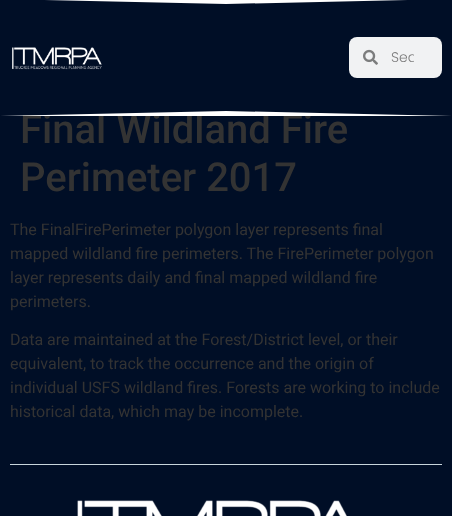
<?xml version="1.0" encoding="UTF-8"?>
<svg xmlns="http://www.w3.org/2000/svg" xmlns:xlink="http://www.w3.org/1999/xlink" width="452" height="516">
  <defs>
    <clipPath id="clip1"><rect x="391" y="47" width="23" height="21" /></clipPath>
  </defs>
  <rect width="100%" height="100%" fill="#000e26" />
  <path d="M 226 4 l -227 -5 h 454 z" fill="#ffffff" />
  <image x="12" y="47" width="90" height="23" xlink:href="image1.png" />
  <rect x="349" y="37" width="93" height="41" rx="8" fill="#f1f2f3" />
  <image x="363" y="49" width="15" height="16" xlink:href="image2.png" />
  <rect x="10" y="464" width="432" height="1" fill="#c8d5dc" />
  <image x="77" y="500" width="270" height="16" xlink:href="image3.png" />
  <g clip-path="url(#clip1)">
    <text x="391" y="62" style="font-family: Poppins; font-size: 14px; font-weight: 300; fill: #7d7d7d">Sea</text>
  </g>
  <text x="20" y="143" style="font-family: Roboto; font-size: 40px; font-weight: 500; fill: #333333">Final Wildland Fire</text>
  <rect x="22" y="113" width="289" height="2" fill="#000e26" />
  <path d="M 226 111 l 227 5 h -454 z" fill="#ffffff" />
  <text x="20" y="191" style="font-family: Roboto; font-size: 40px; font-weight: 500; fill: #333333">Perimeter 2017</text>
  <text x="10" y="235" style="font-family: Roboto; font-size: 16px; fill: #333333">The FinalFirePerimeter polygon layer represents final</text>
  <text x="10" y="259" style="font-family: Roboto; font-size: 16px; fill: #333333">mapped wildland fire perimeters. The FirePerimeter polygon</text>
  <text x="10" y="283" style="font-family: Roboto; font-size: 16px; fill: #333333">layer represents daily and final mapped wildland fire</text>
  <text x="10" y="307" style="font-family: Roboto; font-size: 16px; fill: #333333">perimeters.</text>
  <text x="10" y="345" style="font-family: Roboto; font-size: 16px; fill: #333333">Data are maintained at the Forest/District level, or their</text>
  <text x="10" y="369" style="font-family: Roboto; font-size: 16px; fill: #333333">equivalent, to track the occurrence and the origin of</text>
  <text x="10" y="393" style="font-family: Roboto; font-size: 16px; fill: #333333">individual USFS wildland fires. Forests are working to include</text>
  <text x="10" y="417" style="font-family: Roboto; font-size: 16px; fill: #333333">historical data, which may be incomplete.</text>
</svg>
